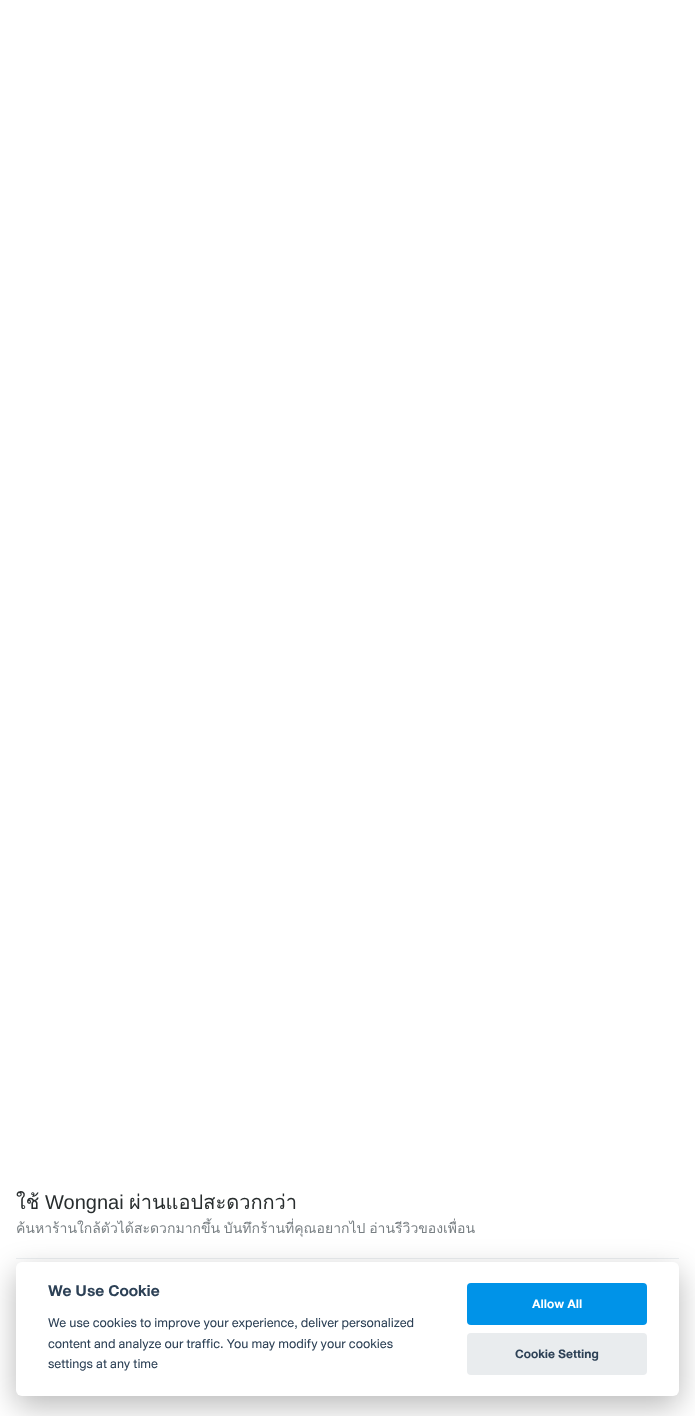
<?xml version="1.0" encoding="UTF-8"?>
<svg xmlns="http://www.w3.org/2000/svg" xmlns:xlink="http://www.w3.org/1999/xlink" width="695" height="1416">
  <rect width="100%" height="100%" fill="#ffffff" />
  <rect x="16" y="1258" width="663" height="1" fill="#edf0f2" />
  <rect x="16" y="1272" width="663" height="134" rx="6" fill="#020203" fill-opacity="0.28" filter="blur(15px)" />
  <rect x="16" y="1262" width="663" height="134" rx="6" fill="#ffffff" />
  <rect x="467" y="1283" width="180" height="42" rx="4" fill="#0093e8" />
  <rect x="467" y="1333" width="180" height="42" rx="4" fill="#e9ecee" />
  <text x="16" y="1209" style="font-family: Loma; font-size: 20px; fill: #282d2e">ใช้</text>
  <text x="45" y="1209" style="font-family: Liberation Sans; font-size: 20px; fill: #282d2e">Wongnai</text>
  <text x="129" y="1209" style="font-family: Loma; font-size: 20px; fill: #282d2e">ผ่านแอปสะดวกกว่า</text>
  <text x="16" y="1233" word-spacing="-1" style="font-family: Loma; font-size: 14px; fill: #787f83">ค้นหาร้านใกล้ตัวได้สะดวกมากขึ้น บันทึกร้านที่คุณอยากไป อ่านรีวิวของเพื่อน</text>
  <text x="48" y="1296" style="font-family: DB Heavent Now; font-size: 16.75px; font-weight: bold; fill: #2d4156">We Use Cookie</text>
  <text x="48" y="1327" style="font-family: DB Heavent Now; font-size: 13.6px; fill: #2d4156">We use cookies to improve your experience, deliver personalized</text>
  <text x="48" y="1348" style="font-family: DB Heavent Now; font-size: 13.6px; fill: #2d4156">content and analyze our traffic. You may modify your cookies</text>
  <text x="48" y="1368" style="font-family: DB Heavent Now; font-size: 13.6px; fill: #2d4156">settings at any time</text>
  <text x="532" y="1308" style="font-family: DB Heavent Now; font-size: 13px; font-weight: bold; fill: #ffffff">Allow All</text>
  <text x="515" y="1358" style="font-family: DB Heavent Now; font-size: 13px; font-weight: bold; fill: #2d4156">Cookie Setting</text>
</svg>
